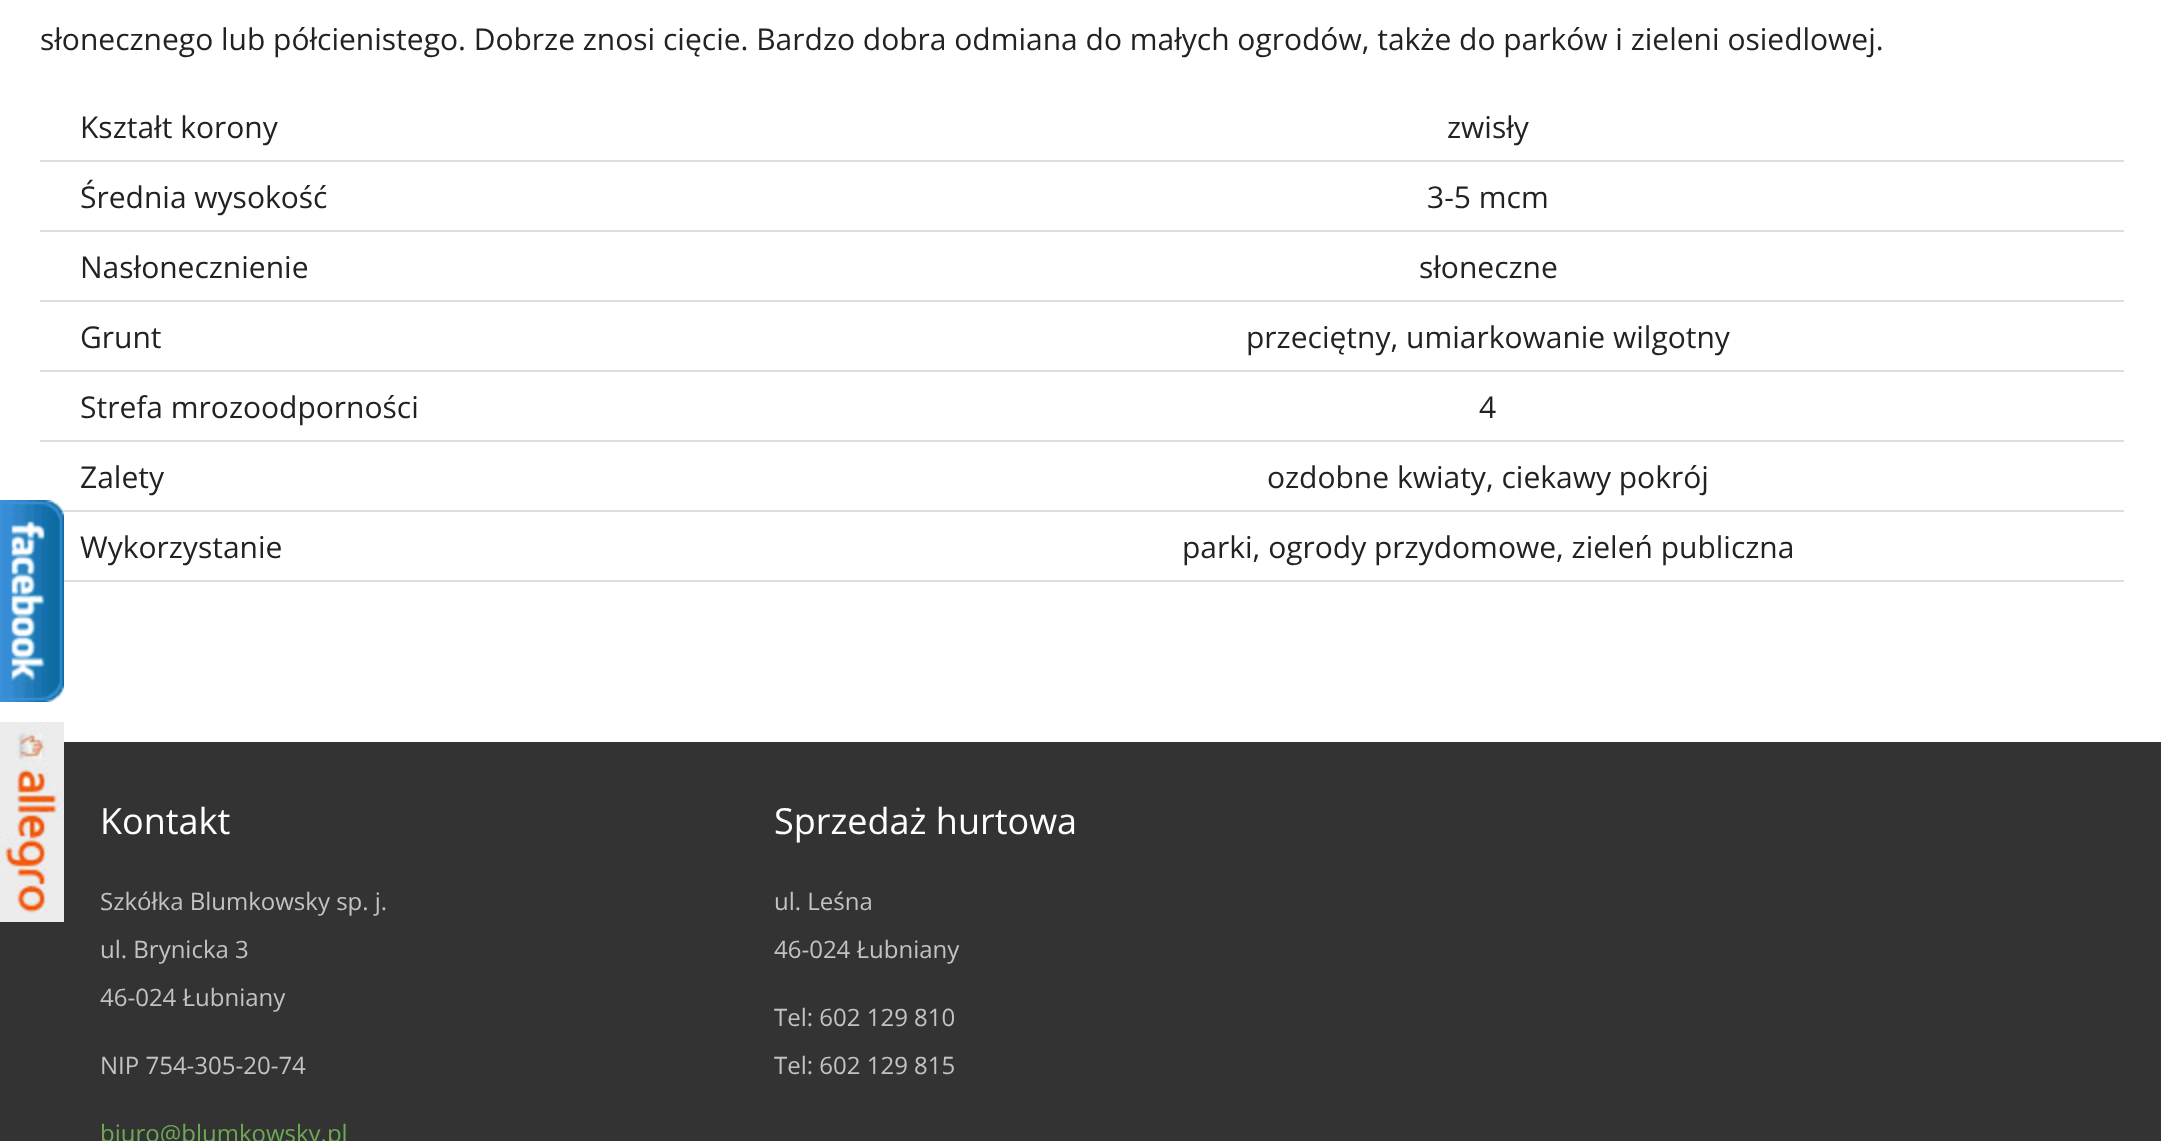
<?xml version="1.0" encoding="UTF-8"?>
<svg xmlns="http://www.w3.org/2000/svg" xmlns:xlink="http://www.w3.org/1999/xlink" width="2161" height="1141">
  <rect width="100%" height="100%" fill="#ffffff" />
  <rect x="40" y="160" width="2084" height="2" fill="#dddddd" />
  <rect x="40" y="230" width="2084" height="2" fill="#dddddd" />
  <rect x="40" y="300" width="2084" height="2" fill="#dddddd" />
  <rect x="40" y="370" width="2084" height="2" fill="#dddddd" />
  <rect x="40" y="440" width="2084" height="2" fill="#dddddd" />
  <rect x="59" y="510" width="2065" height="2" fill="#dddddd" />
  <rect x="64" y="580" width="2060" height="2" fill="#dddddd" />
  <image x="0" y="500" width="64" height="202" xlink:href="image1.png" />
  <rect y="742" width="2161" height="399" fill="#333333" />
  <image x="0" y="722" width="64" height="200" xlink:href="image2.png" />
  <text x="40" y="50" style="font-family: Open Sans; font-size: 30px; fill: #222222">słonecznego lub półcienistego. Dobrze znosi cięcie. Bardzo dobra odmiana do małych ogrodów, także do parków i zieleni osiedlowej.</text>
  <text x="80" y="138" style="font-family: Open Sans; font-size: 30px; fill: #222222">Kształt korony</text>
  <text x="1447" y="138" style="font-family: Open Sans; font-size: 30px; fill: #222222">zwisły</text>
  <text x="80" y="208" style="font-family: Open Sans; font-size: 30px; fill: #222222">Średnia wysokość</text>
  <text x="1427" y="208" style="font-family: Open Sans; font-size: 30px; fill: #222222">3-5 mcm</text>
  <text x="80" y="278" style="font-family: Open Sans; font-size: 30px; fill: #222222">Nasłonecznienie</text>
  <text x="1419" y="278" style="font-family: Open Sans; font-size: 30px; fill: #222222">słoneczne</text>
  <text x="80" y="348" style="font-family: Open Sans; font-size: 30px; fill: #222222">Grunt</text>
  <text x="1246" y="348" style="font-family: Open Sans; font-size: 30px; fill: #222222">przeciętny, umiarkowanie wilgotny</text>
  <text x="80" y="418" style="font-family: Open Sans; font-size: 30px; fill: #222222">Strefa mrozoodporności</text>
  <text x="1479" y="418" style="font-family: Open Sans; font-size: 30px; fill: #222222">4</text>
  <text x="80" y="488" style="font-family: Open Sans; font-size: 30px; fill: #222222">Zalety</text>
  <text x="1267" y="488" style="font-family: Open Sans; font-size: 30px; fill: #222222">ozdobne kwiaty, ciekawy pokrój</text>
  <text x="80" y="558" style="font-family: Open Sans; font-size: 30px; fill: #222222">Wykorzystanie</text>
  <text x="1182" y="558" style="font-family: Open Sans; font-size: 30px; fill: #222222">parki, ogrody przydomowe, zieleń publiczna</text>
  <text x="100" y="834" style="font-family: Open Sans; font-size: 36px; fill: #ffffff">Kontakt</text>
  <text x="100" y="910" style="font-family: Open Sans; font-size: 24px; fill: #c2c2c2">Szkółka Blumkowsky sp. j.</text>
  <text x="100" y="958" style="font-family: Open Sans; font-size: 24px; fill: #c2c2c2">ul. Brynicka 3</text>
  <text x="100" y="1006" style="font-family: Open Sans; font-size: 24px; fill: #c2c2c2">46-024 Łubniany</text>
  <text x="100" y="1074" style="font-family: Open Sans; font-size: 24px; fill: #c2c2c2">NIP 754-305-20-74</text>
  <text x="100" y="1142" style="font-family: Open Sans; font-size: 24px; fill: #6da854">biuro@blumkowsky.pl</text>
  <text x="774" y="834" style="font-family: Open Sans; font-size: 36px; fill: #ffffff">Sprzedaż hurtowa</text>
  <text x="774" y="910" style="font-family: Open Sans; font-size: 24px; fill: #c2c2c2">ul. Leśna</text>
  <text x="774" y="958" style="font-family: Open Sans; font-size: 24px; fill: #c2c2c2">46-024 Łubniany</text>
  <text x="774" y="1026" style="font-family: Open Sans; font-size: 24px; fill: #c2c2c2">Tel: 602 129 810</text>
  <text x="774" y="1074" style="font-family: Open Sans; font-size: 24px; fill: #c2c2c2">Tel: 602 129 815</text>
</svg>
